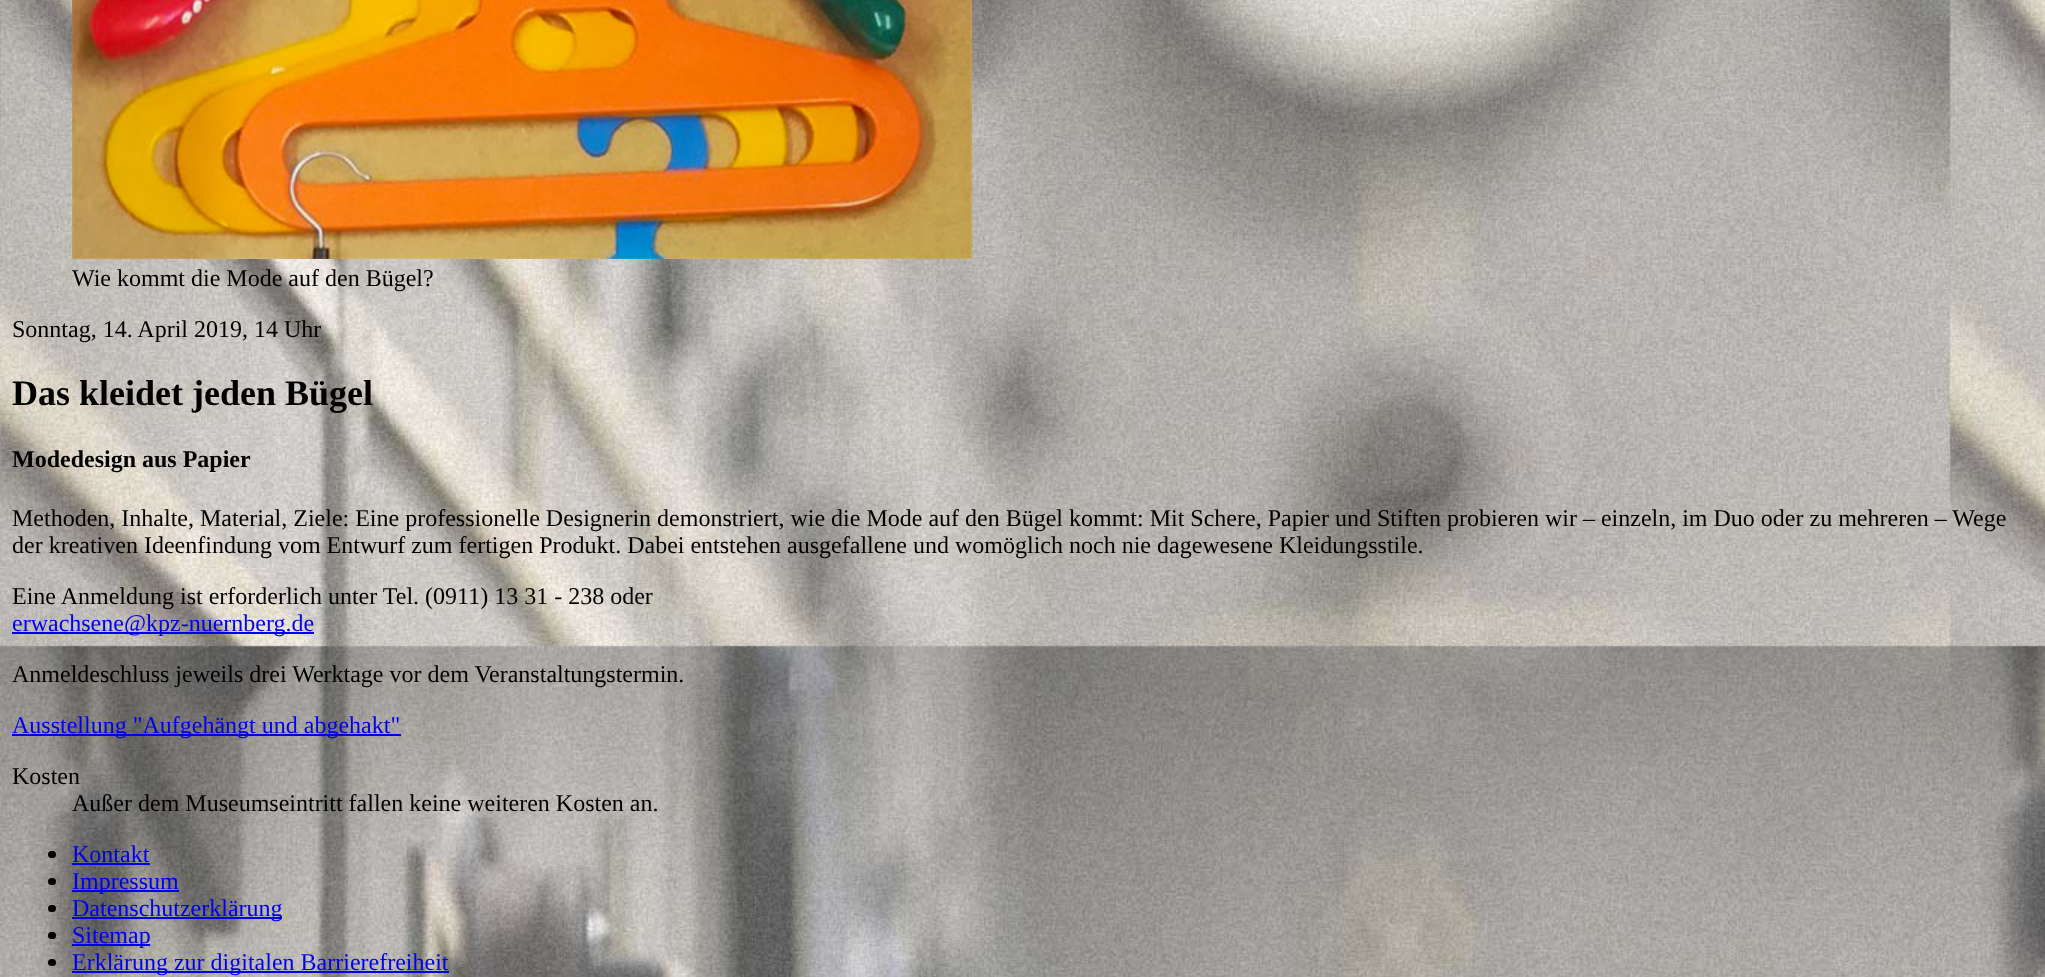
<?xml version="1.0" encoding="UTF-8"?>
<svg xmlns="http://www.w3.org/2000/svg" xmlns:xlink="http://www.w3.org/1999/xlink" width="2045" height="977">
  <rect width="100%" height="100%" fill="#ffffff" />
  <image x="0" y="0" width="2045" height="977" xlink:href="image1.png" />
  <image x="72" y="0" width="900" height="259" xlink:href="image2.png" />
  <rect x="12" y="632" width="302" height="2" fill="#0000ee" />
  <rect x="12" y="734" width="389" height="2" fill="#0000ee" />
  <rect x="48" y="851" width="8" height="7" rx="3.5" fill="#000000" />
  <rect x="72" y="863" width="78" height="2" fill="#0000ee" />
  <rect x="48" y="878" width="8" height="7" rx="3.5" fill="#000000" />
  <rect x="72" y="890" width="107" height="2" fill="#0000ee" />
  <rect x="48" y="905" width="8" height="7" rx="3.5" fill="#000000" />
  <rect x="72" y="917" width="210" height="2" fill="#0000ee" />
  <rect x="48" y="932" width="8" height="7" rx="3.5" fill="#000000" />
  <rect x="72" y="944" width="78" height="2" fill="#0000ee" />
  <rect x="48" y="959" width="8" height="7" rx="3.5" fill="#000000" />
  <rect x="72" y="971" width="377" height="2" fill="#0000ee" />
  <text x="72" y="286" style="font-family: Liberation Serif; font-size: 24px; fill: #000000">Wie kommt die Mode auf den Bügel?</text>
  <text x="12" y="337" style="font-family: Liberation Serif; font-size: 24px; fill: #000000">Sonntag, 14. April 2019, 14 Uhr</text>
  <text x="12" y="405" style="font-family: Liberation Serif; font-size: 36px; font-weight: bold; fill: #000000">Das kleidet jeden Bügel</text>
  <text x="12" y="467" style="font-family: Liberation Serif; font-size: 24px; font-weight: bold; fill: #000000">Modedesign aus Papier</text>
  <text x="12" y="526" style="font-family: Liberation Serif; font-size: 24px; fill: #000000">Methoden, Inhalte, Material, Ziele: Eine professionelle Designerin demonstriert, wie die Mode auf den Bügel kommt: Mit Schere, Papier und Stiften probieren wir – einzeln, im Duo oder zu mehreren – Wege</text>
  <text x="12" y="553" style="font-family: Liberation Serif; font-size: 24px; fill: #000000">der kreativen Ideenfindung vom Entwurf zum fertigen Produkt. Dabei entstehen ausgefallene und womöglich noch nie dagewesene Kleidungsstile.</text>
  <text x="12" y="604" style="font-family: Liberation Serif; font-size: 24px; fill: #000000">Eine Anmeldung ist erforderlich unter Tel. (0911) 13 31 - 238 oder</text>
  <text x="12" y="631" style="font-family: Liberation Serif; font-size: 24px; fill: #0000ee">erwachsene@kpz-nuernberg.de</text>
  <text x="12" y="682" style="font-family: Liberation Serif; font-size: 24px; fill: #000000">Anmeldeschluss jeweils drei Werktage vor dem Veranstaltungstermin.</text>
  <text x="12" y="733" style="font-family: Liberation Serif; font-size: 24px; fill: #0000ee">Ausstellung "Aufgehängt und abgehakt"</text>
  <text x="12" y="784" style="font-family: Liberation Serif; font-size: 24px; fill: #000000">Kosten</text>
  <text x="72" y="811" style="font-family: Liberation Serif; font-size: 24px; fill: #000000">Außer dem Museumseintritt fallen keine weiteren Kosten an.</text>
  <text x="72" y="862" style="font-family: Liberation Serif; font-size: 24px; fill: #0000ee">Kontakt</text>
  <text x="72" y="889" style="font-family: Liberation Serif; font-size: 24px; fill: #0000ee">Impressum</text>
  <text x="72" y="916" style="font-family: Liberation Serif; font-size: 24px; fill: #0000ee">Datenschutzerklärung</text>
  <text x="72" y="943" style="font-family: Liberation Serif; font-size: 24px; fill: #0000ee">Sitemap</text>
  <text x="72" y="970" style="font-family: Liberation Serif; font-size: 24px; fill: #0000ee">Erklärung zur digitalen Barrierefreiheit</text>
</svg>
